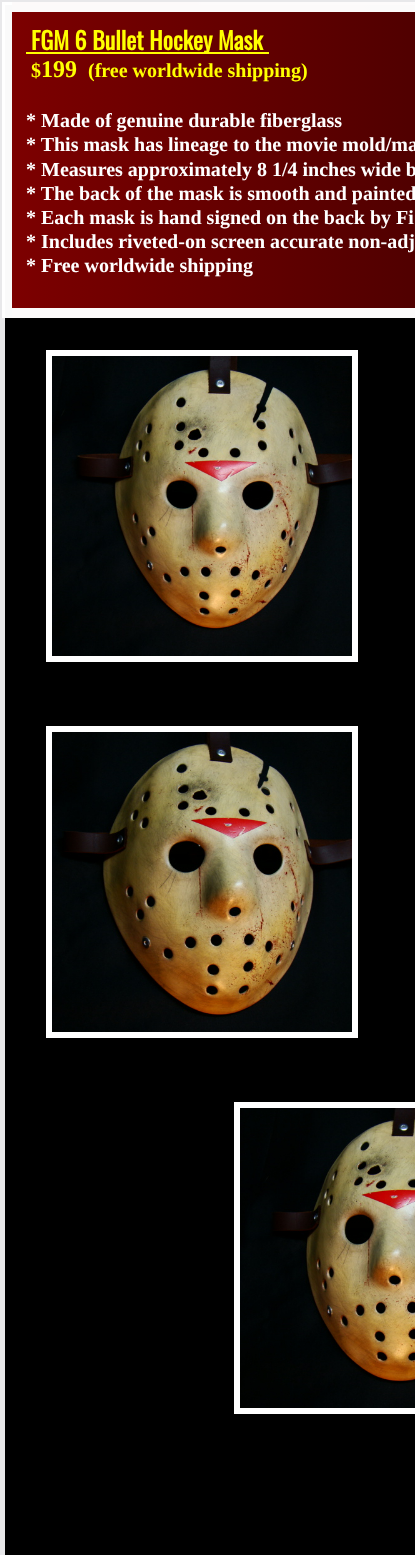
<?xml version="1.0" encoding="UTF-8"?>
<svg xmlns="http://www.w3.org/2000/svg" xmlns:xlink="http://www.w3.org/1999/xlink" width="415" height="1555">
  <defs>
    <linearGradient id="g1" gradientUnits="userSpaceOnUse" x1="12" y1="160" x2="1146" y2="160"><stop offset="0" stop-color="#7f0000" stop-opacity="0.98" /><stop offset="1" stop-color="#7f0000" stop-opacity="0" /></linearGradient>
  </defs>
  <rect width="100%" height="100%" fill="#000000" />
  <rect x="2.5" y="2.5" width="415" height="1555" fill="none" stroke="#e8e8ea" stroke-width="5" />
  <rect x="12" y="2" width="403" height="316" fill="url(#g1)" />
  <rect x="7" y="7" width="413" height="306" fill="none" stroke="#ffffff" stroke-opacity="0.98" stroke-width="10" />
  <rect x="26" y="52" width="243" height="2" fill="#ffff00" />
  <rect x="49" y="353" width="306" height="306" fill="none" stroke="#ffffff" stroke-width="6" />
  <image x="52" y="356" width="300" height="300" xlink:href="image1.png" />
  <rect x="49" y="729" width="306" height="306" fill="none" stroke="#ffffff" stroke-width="6" />
  <image x="52" y="732" width="300" height="300" xlink:href="image2.png" />
  <rect x="237" y="1105" width="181" height="306" fill="none" stroke="#ffffff" stroke-width="6" />
  <image x="240" y="1108" width="175" height="300" xlink:href="image3.png" />
  <text x="31" y="50" style="font-family: Oswald; font-size: 24px; font-weight: bold; fill: #ffff00">FGM 6 Bullet Hockey Mask</text>
  <text x="31" y="77" style="font-family: Liberation Serif; font-size: 20px; font-weight: bold; fill: #ffff00">$</text>
  <text x="41" y="77" style="font-family: Liberation Serif; font-size: 24px; font-weight: bold; fill: #ffff00">199</text>
  <text x="88" y="77" style="font-family: Liberation Serif; font-size: 20px; font-weight: bold; fill: #ffff00">(free worldwide shipping)</text>
  <text x="26" y="127" style="font-family: Liberation Serif; font-size: 20px; font-weight: bold; fill: #ffffff">* Made of genuine durable fiberglass</text>
  <text x="26" y="151" style="font-family: Liberation Serif; font-size: 20px; font-weight: bold; fill: #ffffff">* This mask has lineage to the movie mold/ma</text>
  <text x="26" y="176" style="font-family: Liberation Serif; font-size: 20px; font-weight: bold; fill: #ffffff">* Measures approximately 8 1/4 inches wide b</text>
  <text x="26" y="200" style="font-family: Liberation Serif; font-size: 20px; font-weight: bold; fill: #ffffff">* The back of the mask is smooth and painted</text>
  <text x="26" y="224" style="font-family: Liberation Serif; font-size: 20px; font-weight: bold; fill: #ffffff">* Each mask is hand signed on the back by Fi</text>
  <text x="26" y="248" style="font-family: Liberation Serif; font-size: 20px; font-weight: bold; fill: #ffffff">* Includes riveted-on screen accurate non-adj</text>
  <text x="26" y="272" style="font-family: Liberation Serif; font-size: 20px; font-weight: bold; fill: #ffffff">* Free worldwide shipping</text>
</svg>
